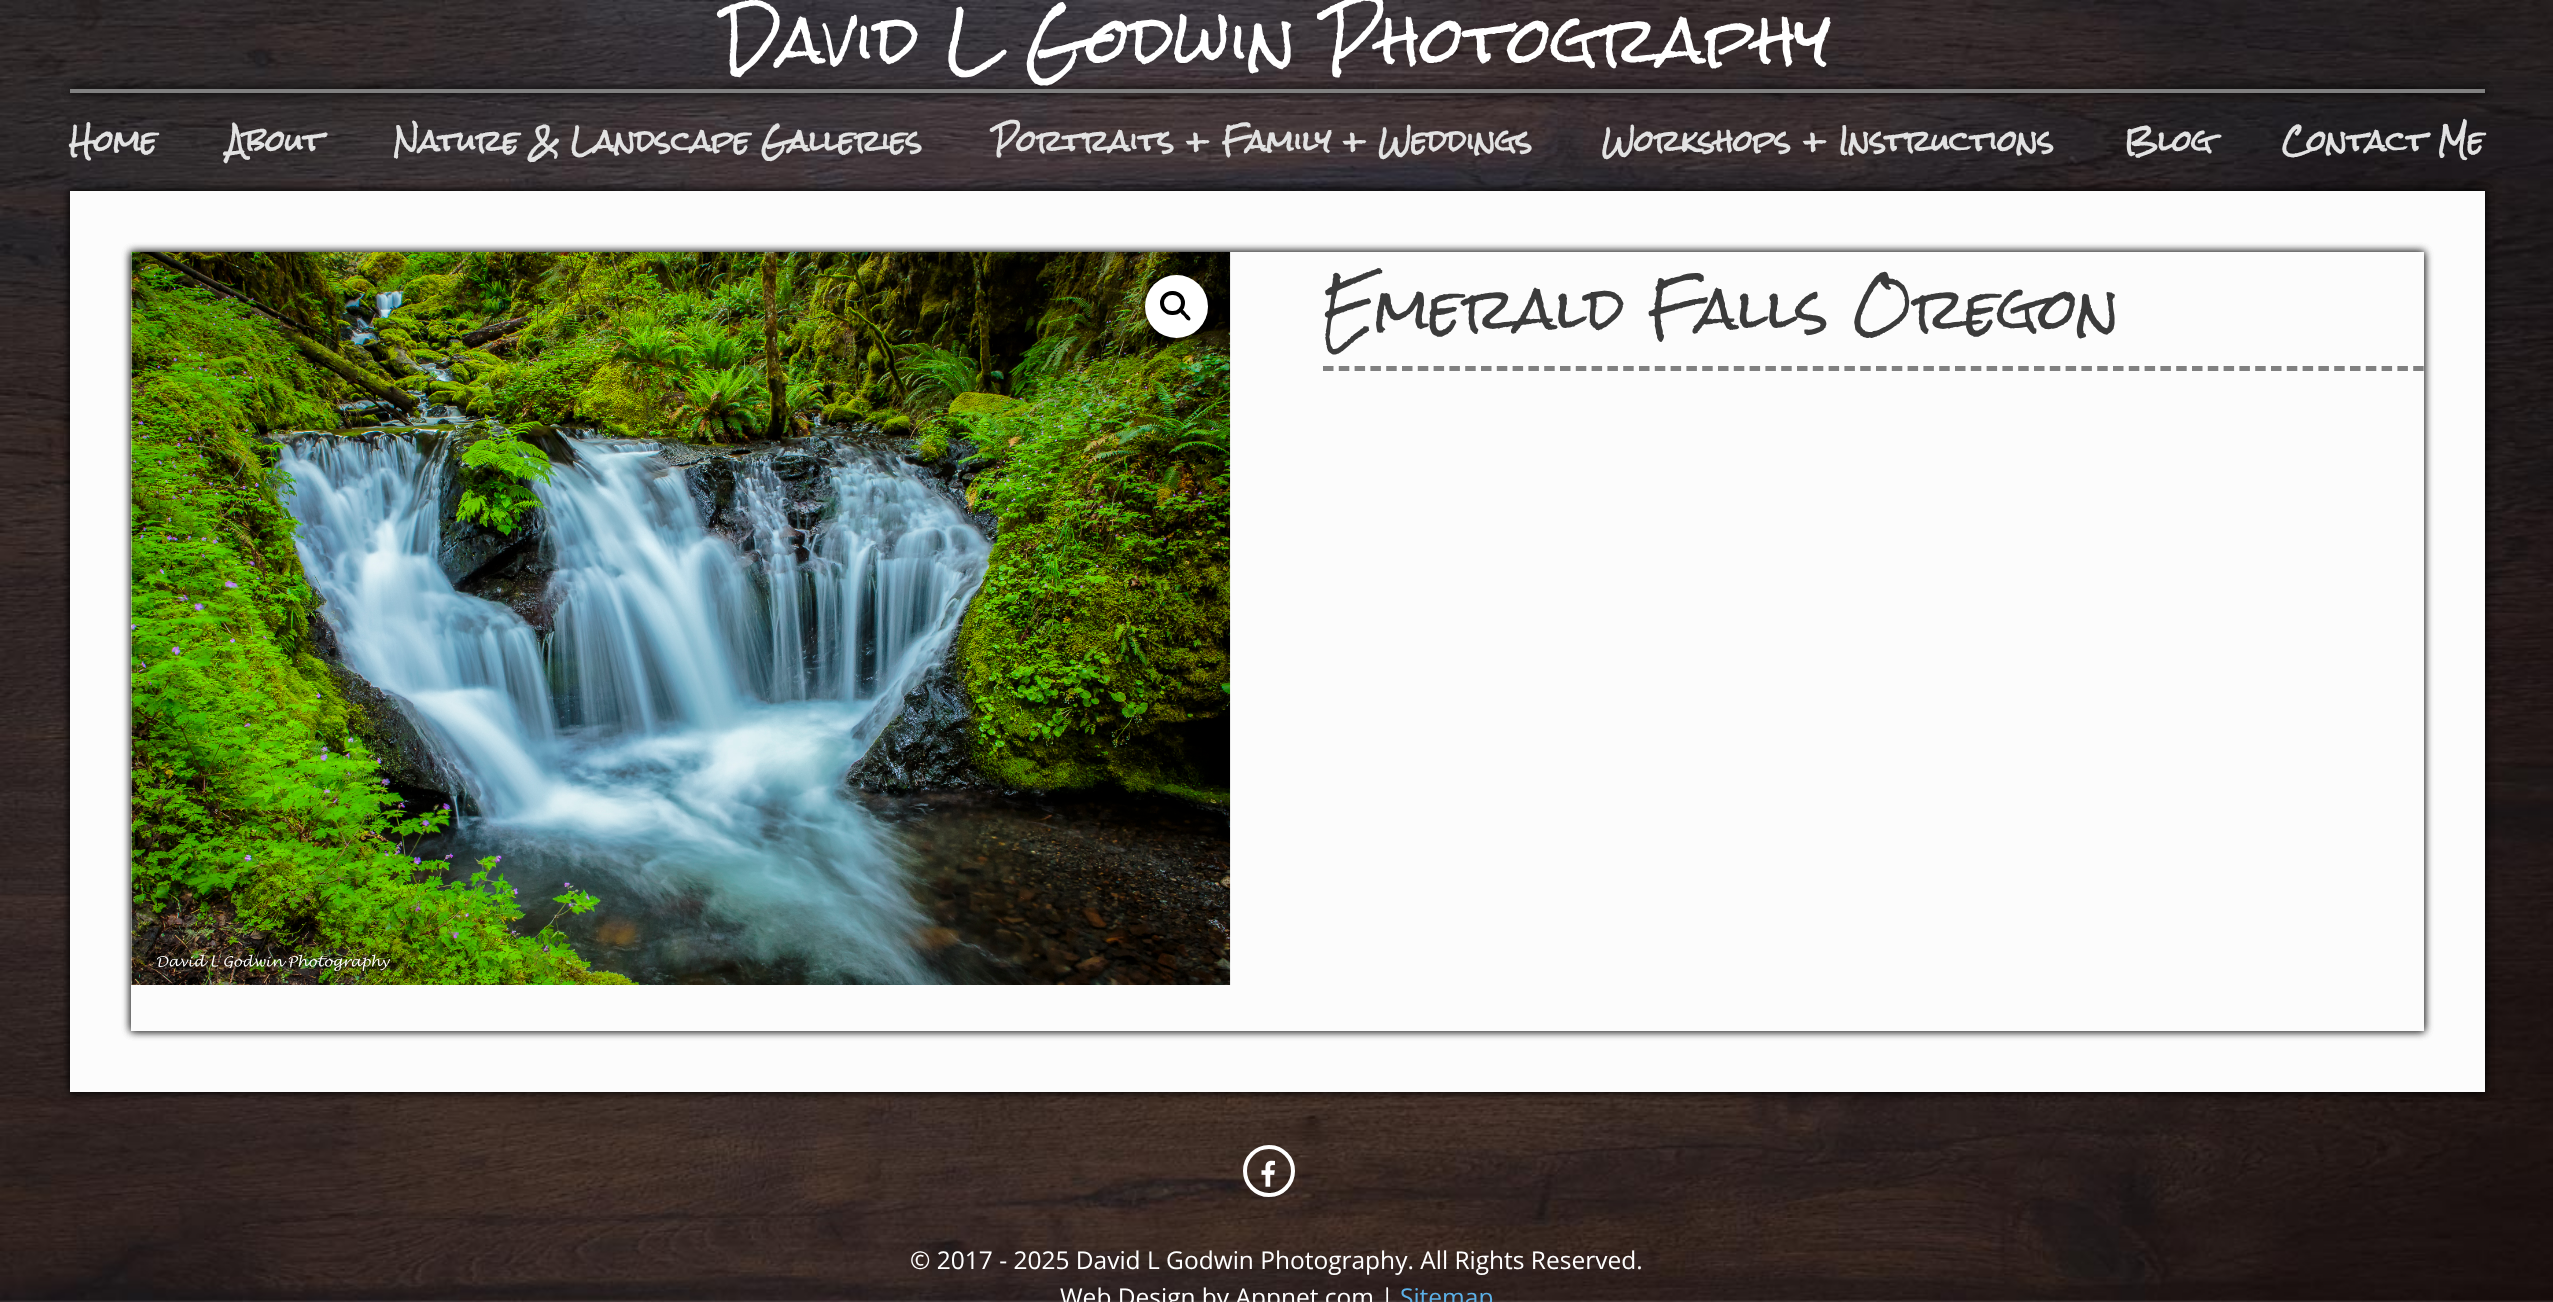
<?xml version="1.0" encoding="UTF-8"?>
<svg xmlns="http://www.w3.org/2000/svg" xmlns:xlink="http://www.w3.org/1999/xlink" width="2553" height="1302">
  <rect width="100%" height="100%" fill="#ffffff" />
  <image x="0" y="0" width="2553" height="1302" xlink:href="image1.png" />
  <rect x="70" y="89" width="2415" height="4" fill="#000000" fill-opacity="0.5" filter="blur(4.5px)" />
  <rect x="70" y="89" width="2415" height="4" fill="#000000" fill-opacity="0.5" filter="blur(4.5px)" />
  <rect x="70" y="89" width="2415" height="4" fill="#000000" fill-opacity="0.5" filter="blur(4.5px)" />
  <rect x="70" y="89" width="2415" height="4" fill="#808080" />
  <rect x="70" y="191" width="2415" height="901" fill="#000000" fill-opacity="0.5" filter="blur(4.5px)" />
  <rect x="70" y="191" width="2415" height="901" fill="#000000" fill-opacity="0.5" filter="blur(4.5px)" />
  <rect x="70" y="191" width="2415" height="901" fill="#000000" fill-opacity="0.5" filter="blur(4.5px)" />
  <rect x="70" y="191" width="2415" height="901" fill="#fcfcfc" />
  <rect x="131" y="252" width="2293" height="779" fill="#000000" fill-opacity="0.5" filter="blur(4.5px)" />
  <rect x="131" y="252" width="2293" height="779" fill="#000000" fill-opacity="0.5" filter="blur(4.5px)" />
  <rect x="131" y="252" width="2293" height="779" fill="#000000" fill-opacity="0.5" filter="blur(4.5px)" />
  <rect x="131" y="252" width="2293" height="779" fill="#fcfcfc" />
  <image x="131" y="251" width="1100" height="734" xlink:href="image2.png" />
  <circle cx="1176.5" cy="306.5" r="31.5" fill="#ffffff" />
  <rect x="1162" y="293" width="21" height="20" rx="10" fill="none" stroke="#000000" stroke-width="4" />
  <path d="M 1180.5 310 c 2 -2 5 2.5 6 4 c 1 1 5.5 4 3.5 6 c -2 2 -5 -2.5 -6 -4 c -1 -1 -5.5 -4 -3.5 -6 z" fill="#000000" />
  <path d="M 1323 368.5 h 1101" fill="none" stroke="#808080" stroke-width="5.2" stroke-dasharray="10.5 5.3" />
  <circle cx="1269" cy="1171" r="24" fill="none" stroke="#ffffff" stroke-width="4" />
  <image x="1261" y="1160" width="14" height="27" xlink:href="image3.png" />
  <text x="722" y="65" style="font-family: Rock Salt; font-size: 63px; fill: #ffffff">David L Godwin Photography</text>
  <text x="69" y="152" style="font-family: Rock Salt; font-size: 28px; font-weight: bold; fill: #e2e2e2">Home</text>
  <text x="227" y="152" style="font-family: Rock Salt; font-size: 28px; font-weight: bold; fill: #e2e2e2">About</text>
  <text x="393" y="152" style="font-family: Rock Salt; font-size: 28px; font-weight: bold; fill: #e2e2e2">Nature &amp; Landscape Galleries</text>
  <text x="992" y="152" style="font-family: Rock Salt; font-size: 28px; font-weight: bold; fill: #e2e2e2">Portraits + Family + Weddings</text>
  <text x="1602" y="152" style="font-family: Rock Salt; font-size: 28px; font-weight: bold; fill: #e2e2e2">Workshops + Instructions</text>
  <text x="2124" y="152" style="font-family: Rock Salt; font-size: 28px; font-weight: bold; fill: #e2e2e2">Blog</text>
  <text x="2282" y="152" style="font-family: Rock Salt; font-size: 28px; font-weight: bold; fill: #e2e2e2">Contact Me</text>
  <text x="1322" y="331" style="font-family: Rock Salt; font-size: 56px; fill: #3b3b3b">Emerald Falls Oregon</text>
  <text x="910" y="1269" style="font-family: Open Sans; font-size: 24.5px; fill: #ffffff">© 2017 - 2025 David L Godwin Photography. All Rights Reserved.</text>
  <text x="1060" y="1306" style="font-family: Open Sans; font-size: 24.5px; fill: #ffffff">Web Design by Appnet.com |</text>
  <text x="1400" y="1306" style="font-family: Open Sans; font-size: 24.5px; fill: #5cb1e8">Sitemap</text>
</svg>
